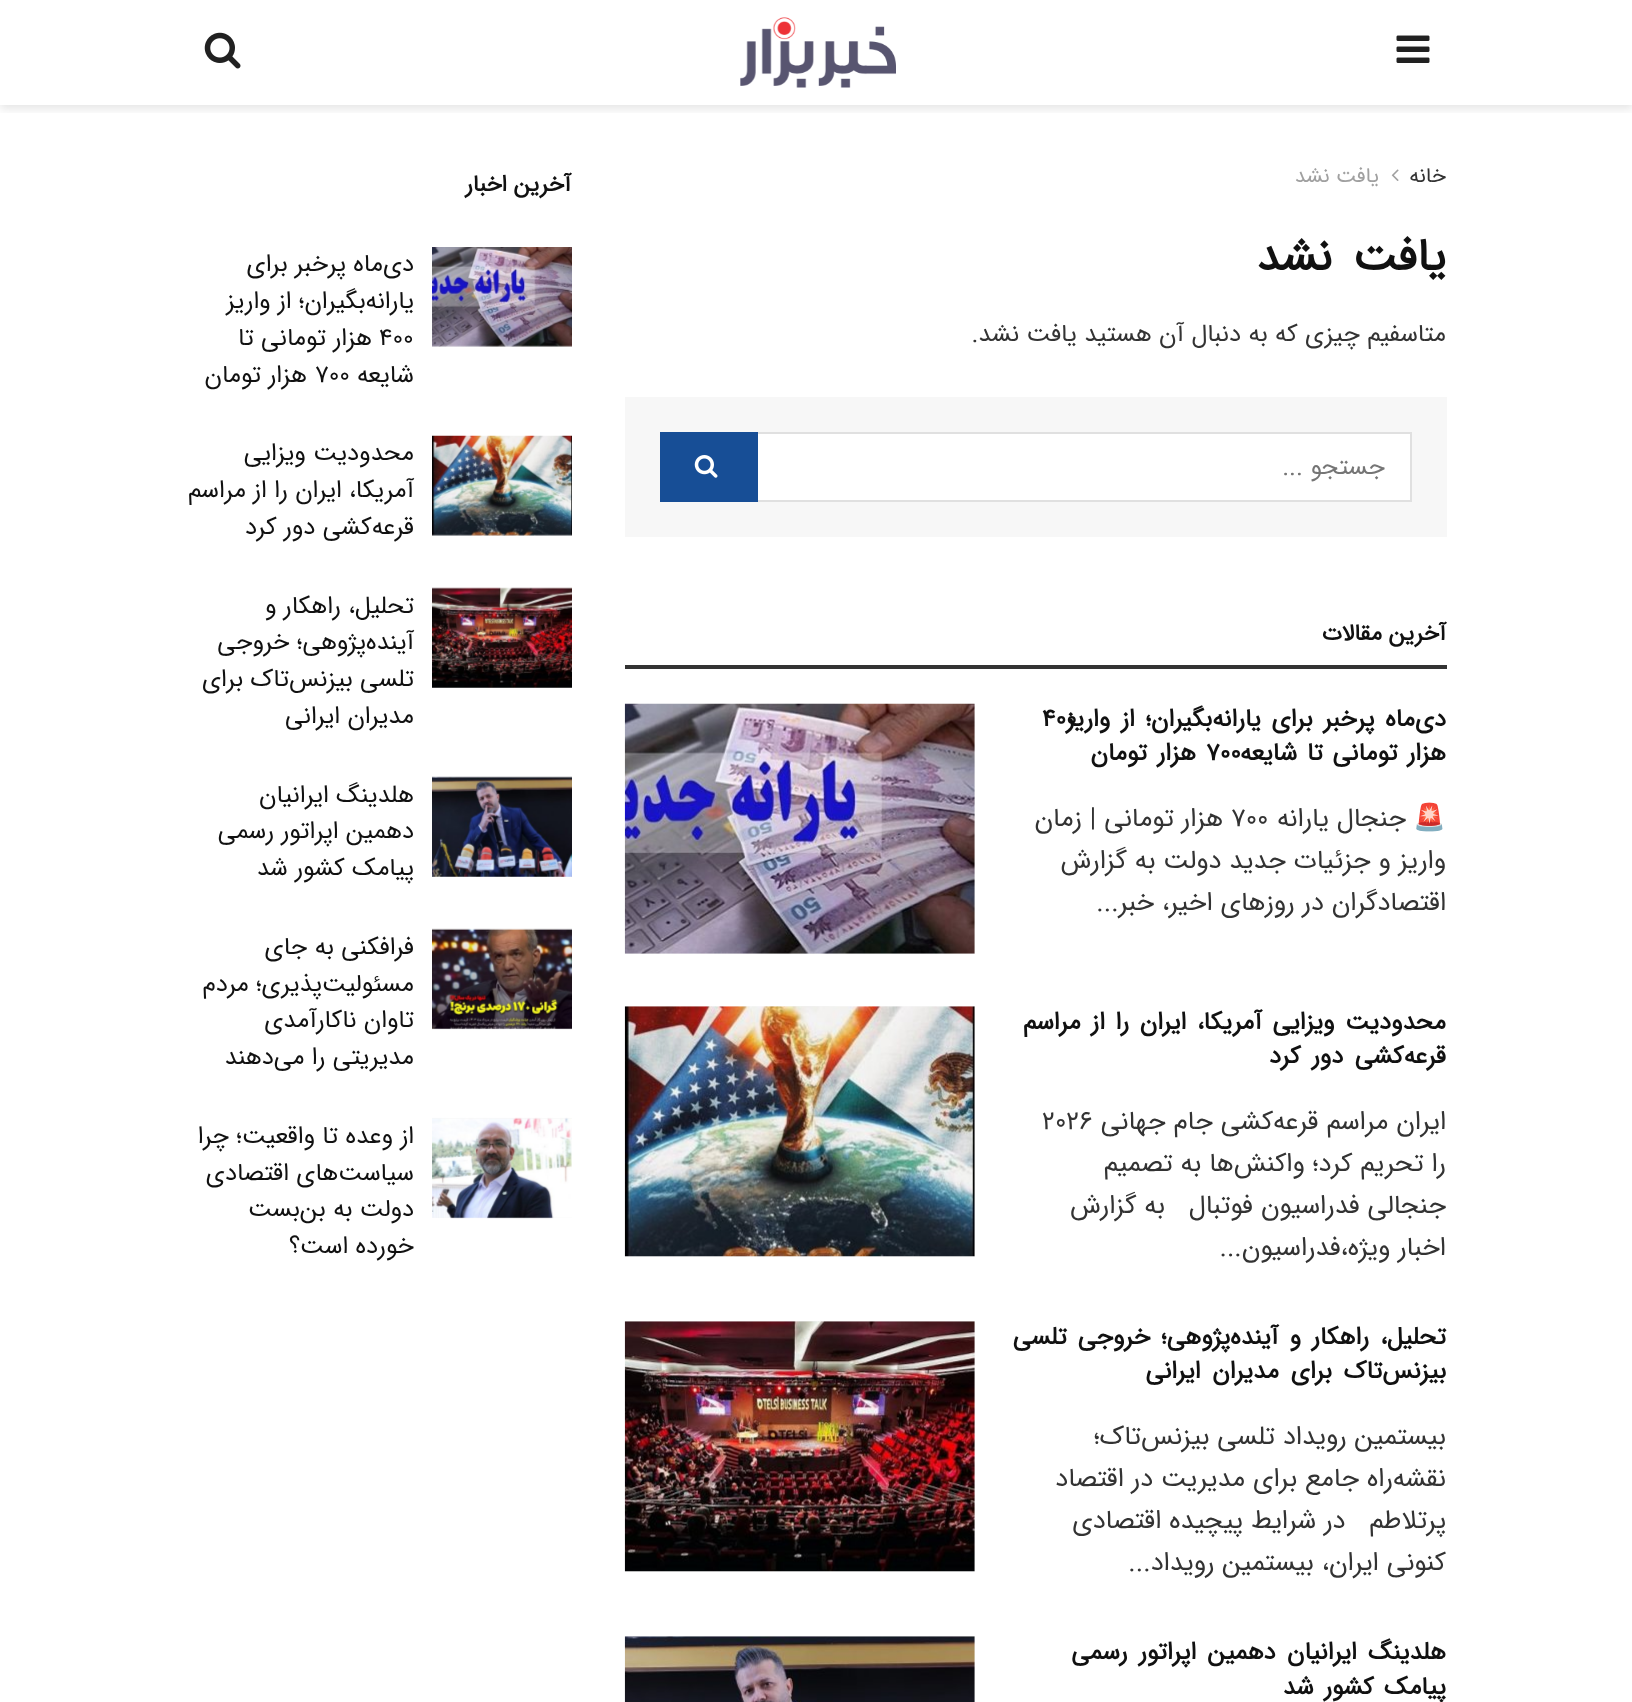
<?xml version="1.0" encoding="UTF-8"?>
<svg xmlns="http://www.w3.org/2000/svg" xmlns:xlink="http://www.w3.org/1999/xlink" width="1632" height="1702">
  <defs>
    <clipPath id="clip1"><rect x="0" y="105" width="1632" height="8" /></clipPath>
  </defs>
  <rect width="100%" height="100%" fill="#ffffff" />
  <g clip-path="url(#clip1)">
    <rect y="4" width="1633" height="105" fill="#000000" fill-opacity="0.1" filter="blur(5px)" />
  </g>
  <image x="1396" y="35" width="34" height="28" xlink:href="image1.png" />
  <image x="740" y="17" width="156" height="71" xlink:href="image2.png" />
  <image x="204" y="32" width="37" height="37" xlink:href="image3.png" />
  <image x="1391" y="169" width="8" height="12" xlink:href="image4.png" />
  <rect x="625" y="397" width="822" height="140" fill="#f7f7f7" />
  <rect x="758" y="434" width="652" height="66" fill="#ffffff" />
  <rect x="661" y="433" width="750" height="68" fill="none" stroke="#e0e0e0" stroke-width="2" />
  <rect x="660" y="432" width="98" height="70" fill="#174e96" />
  <image x="694" y="455" width="24" height="23" xlink:href="image5.png" />
  <rect x="625" y="665" width="822" height="4" fill="#333333" />
  <rect x="625" y="704" width="350" height="250" fill="#f7f7f7" />
  <image x="765" y="703" width="70" height="251" xlink:href="image7.png" />
  <image x="624" y="703" width="351" height="251" xlink:href="image6.png" />
  <rect x="625" y="1006" width="350" height="251" fill="#f7f7f7" />
  <image x="765" y="1006" width="70" height="1" xlink:href="image9.png" />
  <image x="624" y="1006" width="351" height="251" xlink:href="image8.png" />
  <rect x="625" y="1321" width="350" height="251" fill="#f7f7f7" />
  <image x="765" y="1321" width="70" height="1" xlink:href="image9.png" />
  <image x="624" y="1321" width="351" height="251" xlink:href="image10.png" />
  <rect x="625" y="1636" width="350" height="66" fill="#f7f7f7" />
  <image x="765" y="1636" width="70" height="1" xlink:href="image9.png" />
  <image x="624" y="1636" width="351" height="66" xlink:href="image11.png" />
  <rect x="432" y="345" width="140" height="2" fill="#f7f7f7" />
  <image x="488" y="345" width="29" height="2" xlink:href="image13.png" />
  <image x="432" y="247" width="140" height="100" xlink:href="image12.png" />
  <rect x="432" y="534" width="140" height="2" fill="#f7f7f7" />
  <image x="488" y="534" width="29" height="2" xlink:href="image13.png" />
  <image x="432" y="435" width="140" height="101" xlink:href="image14.png" />
  <rect x="432" y="588" width="140" height="100" fill="#f7f7f7" />
  <image x="488" y="588" width="29" height="100" xlink:href="image16.png" />
  <image x="432" y="587" width="140" height="101" xlink:href="image15.png" />
  <rect x="432" y="777" width="140" height="100" fill="#f7f7f7" />
  <image x="488" y="777" width="29" height="100" xlink:href="image16.png" />
  <image x="432" y="776" width="140" height="101" xlink:href="image17.png" />
  <rect x="432" y="929" width="140" height="100" fill="#f7f7f7" />
  <image x="488" y="1028" width="29" height="1" xlink:href="image19.png" />
  <image x="432" y="928" width="140" height="102" xlink:href="image18.png" />
  <rect x="432" y="1118" width="140" height="100" fill="#f7f7f7" />
  <image x="488" y="1217" width="29" height="1" xlink:href="image19.png" />
  <image x="432" y="1117" width="140" height="102" xlink:href="image20.png" />
  <text x="1446" y="182" style="font-family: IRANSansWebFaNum; font-size: 21px; direction: rtl; fill: #333333">خانه</text>
  <text x="1379" y="182" style="font-family: IRANSansWebFaNum; font-size: 21px; direction: rtl; fill: #a0a0a0">یافت نشد</text>
  <text x="1446" y="270" word-spacing="7" style="font-family: IRANSansWebFaNum; font-size: 45.5px; font-weight: bold; letter-spacing: -1px; direction: rtl; fill: #111111">یافت نشد</text>
  <text x="1446" y="341" style="font-family: IRANSansWebFaNum; font-size: 24.5px; direction: rtl; fill: #333333">متاسفیم چیزی که به دنبال آن هستید یافت نشد.</text>
  <text x="1385" y="474" style="font-family: IRANSansWebFaNum; font-size: 24.5px; direction: rtl; fill: #757575">جستجو ...</text>
  <text x="1446" y="640" style="font-family: IRANSansWebFaNum; font-size: 22.75px; font-weight: bold; direction: rtl; fill: #111111">آخرین مقالات</text>
  <text x="1446" y="726" word-spacing="3.5" style="font-family: IRANSansWebFaNum; font-size: 24.5px; font-weight: bold; letter-spacing: -0.5px; direction: rtl; fill: #111111">دی‌ماه پرخبر برای یارانه‌بگیران؛ از واریز</text>
  <text x="1042" y="726" style="font-family: IRANSansWebFaNum; font-size: 24.5px; font-weight: bold; letter-spacing: -0.5px; fill: #111111">۴۰۰</text>
  <text x="1446" y="760" word-spacing="2.5" style="font-family: IRANSansWebFaNum; font-size: 24.5px; font-weight: bold; letter-spacing: -0.5px; direction: rtl; fill: #111111">هزار تومانی تا شایعه</text>
  <text x="1206" y="760" style="font-family: IRANSansWebFaNum; font-size: 24.5px; font-weight: bold; letter-spacing: -0.5px; fill: #111111">۷۰۰</text>
  <text x="1196" y="760" word-spacing="3" style="font-family: IRANSansWebFaNum; font-size: 24.5px; font-weight: bold; letter-spacing: -0.5px; direction: rtl; fill: #111111">هزار تومان</text>
  <text x="1446" y="826" style="font-family: Noto Color Emoji; font-size: 26.25px; direction: rtl; fill: #333333">🚨</text>
  <text x="1406" y="826" style="font-family: IRANSansWebFaNum; font-size: 26.25px; direction: rtl; fill: #333333">جنجال یارانه</text>
  <text x="1231" y="826" style="font-family: IRANSansWebFaNum; font-size: 26.25px; fill: #333333">۷۰۰</text>
  <text x="1223" y="826" style="font-family: IRANSansWebFaNum; font-size: 26.25px; direction: rtl; fill: #333333">هزار تومانی | زمان</text>
  <text x="1446" y="868" style="font-family: IRANSansWebFaNum; font-size: 26.25px; direction: rtl; fill: #333333">واریز و جزئیات جدید دولت به گزارش</text>
  <text x="1446" y="910" style="font-family: IRANSansWebFaNum; font-size: 26.25px; direction: rtl; fill: #333333">اقتصادگران در روزهای اخیر، خبر...</text>
  <text x="1446" y="1029" word-spacing="3.25" style="font-family: IRANSansWebFaNum; font-size: 24.5px; font-weight: bold; letter-spacing: -0.5px; direction: rtl; fill: #111111">محدودیت ویزایی آمریکا، ایران را از مراسم</text>
  <text x="1446" y="1063" word-spacing="4" style="font-family: IRANSansWebFaNum; font-size: 24.5px; font-weight: bold; letter-spacing: -0.5px; direction: rtl; fill: #111111">قرعه‌کشی دور کرد</text>
  <text x="1446" y="1129" style="font-family: IRANSansWebFaNum; font-size: 26.25px; direction: rtl; fill: #333333">ایران مراسم قرعه‌کشی جام جهانی</text>
  <text x="1042" y="1129" style="font-family: IRANSansWebFaNum; font-size: 26.25px; fill: #333333">۲۰۲۶</text>
  <text x="1446" y="1171" style="font-family: IRANSansWebFaNum; font-size: 26.25px; direction: rtl; fill: #333333">را تحریم کرد؛ واکنش‌ها به تصمیم</text>
  <text x="1446" y="1213" style="font-family: IRANSansWebFaNum; font-size: 26.25px; direction: rtl; fill: #333333" xml:space="preserve">جنجالی فدراسیون فوتبال   به گزارش</text>
  <text x="1446" y="1255" style="font-family: IRANSansWebFaNum; font-size: 26.25px; direction: rtl; fill: #333333">اخبار ویژه،فدراسیون...</text>
  <text x="1446" y="1344" word-spacing="3.75" style="font-family: IRANSansWebFaNum; font-size: 24.5px; font-weight: bold; letter-spacing: -0.5px; direction: rtl; fill: #111111">تحلیل، راهکار و آینده‌پژوهی؛ خروجی تلسی</text>
  <text x="1446" y="1378" word-spacing="4.5" style="font-family: IRANSansWebFaNum; font-size: 24.5px; font-weight: bold; letter-spacing: -0.5px; direction: rtl; fill: #111111">بیزنس‌تاک برای مدیران ایرانی</text>
  <text x="1446" y="1444" style="font-family: IRANSansWebFaNum; font-size: 26.25px; direction: rtl; fill: #333333">بیستمین رویداد تلسی بیزنس‌تاک؛</text>
  <text x="1446" y="1486" style="font-family: IRANSansWebFaNum; font-size: 26.25px; direction: rtl; fill: #333333">نقشه‌راه جامع برای مدیریت در اقتصاد</text>
  <text x="1446" y="1528" style="font-family: IRANSansWebFaNum; font-size: 26.25px; direction: rtl; fill: #333333" xml:space="preserve">پرتلاطم   در شرایط پیچیده اقتصادی</text>
  <text x="1446" y="1570" style="font-family: IRANSansWebFaNum; font-size: 26.25px; direction: rtl; fill: #333333">کنونی ایران، بیستمین رویداد...</text>
  <text x="1446" y="1659" word-spacing="4" style="font-family: IRANSansWebFaNum; font-size: 24.5px; font-weight: bold; letter-spacing: -0.5px; direction: rtl; fill: #111111">هلدینگ ایرانیان دهمین اپراتور رسمی</text>
  <text x="1446" y="1694" word-spacing="3" style="font-family: IRANSansWebFaNum; font-size: 24.5px; font-weight: bold; letter-spacing: -0.5px; direction: rtl; fill: #111111">پیامک کشور شد</text>
  <text x="571" y="191" style="font-family: IRANSansWebFaNum; font-size: 22.75px; font-weight: bold; direction: rtl; fill: #111111">آخرین اخبار</text>
  <text x="414" y="271" style="font-family: IRANSansWebFaNum; font-size: 24.5px; direction: rtl; fill: #111111">دی‌ماه پرخبر برای</text>
  <text x="414" y="308" style="font-family: IRANSansWebFaNum; font-size: 24.5px; direction: rtl; fill: #111111">یارانه‌بگیران؛ از واریز</text>
  <text x="379" y="345" style="font-family: IRANSansWebFaNum; font-size: 24.5px; fill: #111111">۴۰۰</text>
  <text x="372" y="345" style="font-family: IRANSansWebFaNum; font-size: 24.5px; direction: rtl; fill: #111111">هزار تومانی تا</text>
  <text x="414" y="382" style="font-family: IRANSansWebFaNum; font-size: 24.5px; direction: rtl; fill: #111111">شایعه</text>
  <text x="315" y="382" style="font-family: IRANSansWebFaNum; font-size: 24.5px; fill: #111111">۷۰۰</text>
  <text x="307" y="382" style="font-family: IRANSansWebFaNum; font-size: 24.5px; direction: rtl; fill: #111111">هزار تومان</text>
  <text x="414" y="460" style="font-family: IRANSansWebFaNum; font-size: 24.5px; direction: rtl; fill: #111111">محدودیت ویزایی</text>
  <text x="414" y="497" style="font-family: IRANSansWebFaNum; font-size: 24.5px; direction: rtl; fill: #111111">آمریکا، ایران را از مراسم</text>
  <text x="414" y="534" style="font-family: IRANSansWebFaNum; font-size: 24.5px; direction: rtl; fill: #111111">قرعه‌کشی دور کرد</text>
  <text x="414" y="613" style="font-family: IRANSansWebFaNum; font-size: 24.5px; direction: rtl; fill: #111111">تحلیل، راهکار و</text>
  <text x="414" y="649" style="font-family: IRANSansWebFaNum; font-size: 24.5px; direction: rtl; fill: #111111">آینده‌پژوهی؛ خروجی</text>
  <text x="414" y="686" style="font-family: IRANSansWebFaNum; font-size: 24.5px; direction: rtl; fill: #111111">تلسی بیزنس‌تاک برای</text>
  <text x="414" y="723" style="font-family: IRANSansWebFaNum; font-size: 24.5px; direction: rtl; fill: #111111">مدیران ایرانی</text>
  <text x="414" y="802" style="font-family: IRANSansWebFaNum; font-size: 24.5px; direction: rtl; fill: #111111">هلدینگ ایرانیان</text>
  <text x="414" y="838" style="font-family: IRANSansWebFaNum; font-size: 24.5px; direction: rtl; fill: #111111">دهمین اپراتور رسمی</text>
  <text x="414" y="875" style="font-family: IRANSansWebFaNum; font-size: 24.5px; direction: rtl; fill: #111111">پیامک کشور شد</text>
  <text x="414" y="954" style="font-family: IRANSansWebFaNum; font-size: 24.5px; direction: rtl; fill: #111111">فرافکنی به جای</text>
  <text x="414" y="991" style="font-family: IRANSansWebFaNum; font-size: 24.5px; direction: rtl; fill: #111111">مسئولیت‌پذیری؛ مردم</text>
  <text x="414" y="1027" style="font-family: IRANSansWebFaNum; font-size: 24.5px; direction: rtl; fill: #111111">تاوان ناکارآمدی</text>
  <text x="414" y="1064" style="font-family: IRANSansWebFaNum; font-size: 24.5px; direction: rtl; fill: #111111">مدیریتی را می‌دهند</text>
  <text x="414" y="1143" style="font-family: IRANSansWebFaNum; font-size: 24.5px; direction: rtl; fill: #111111">از وعده تا واقعیت؛ چرا</text>
  <text x="414" y="1180" style="font-family: IRANSansWebFaNum; font-size: 24.5px; direction: rtl; fill: #111111">سیاست‌های اقتصادی</text>
  <text x="414" y="1216" style="font-family: IRANSansWebFaNum; font-size: 24.5px; direction: rtl; fill: #111111">دولت به بن‌بست</text>
  <text x="414" y="1253" style="font-family: IRANSansWebFaNum; font-size: 24.5px; direction: rtl; fill: #111111">خورده است؟</text>
</svg>
